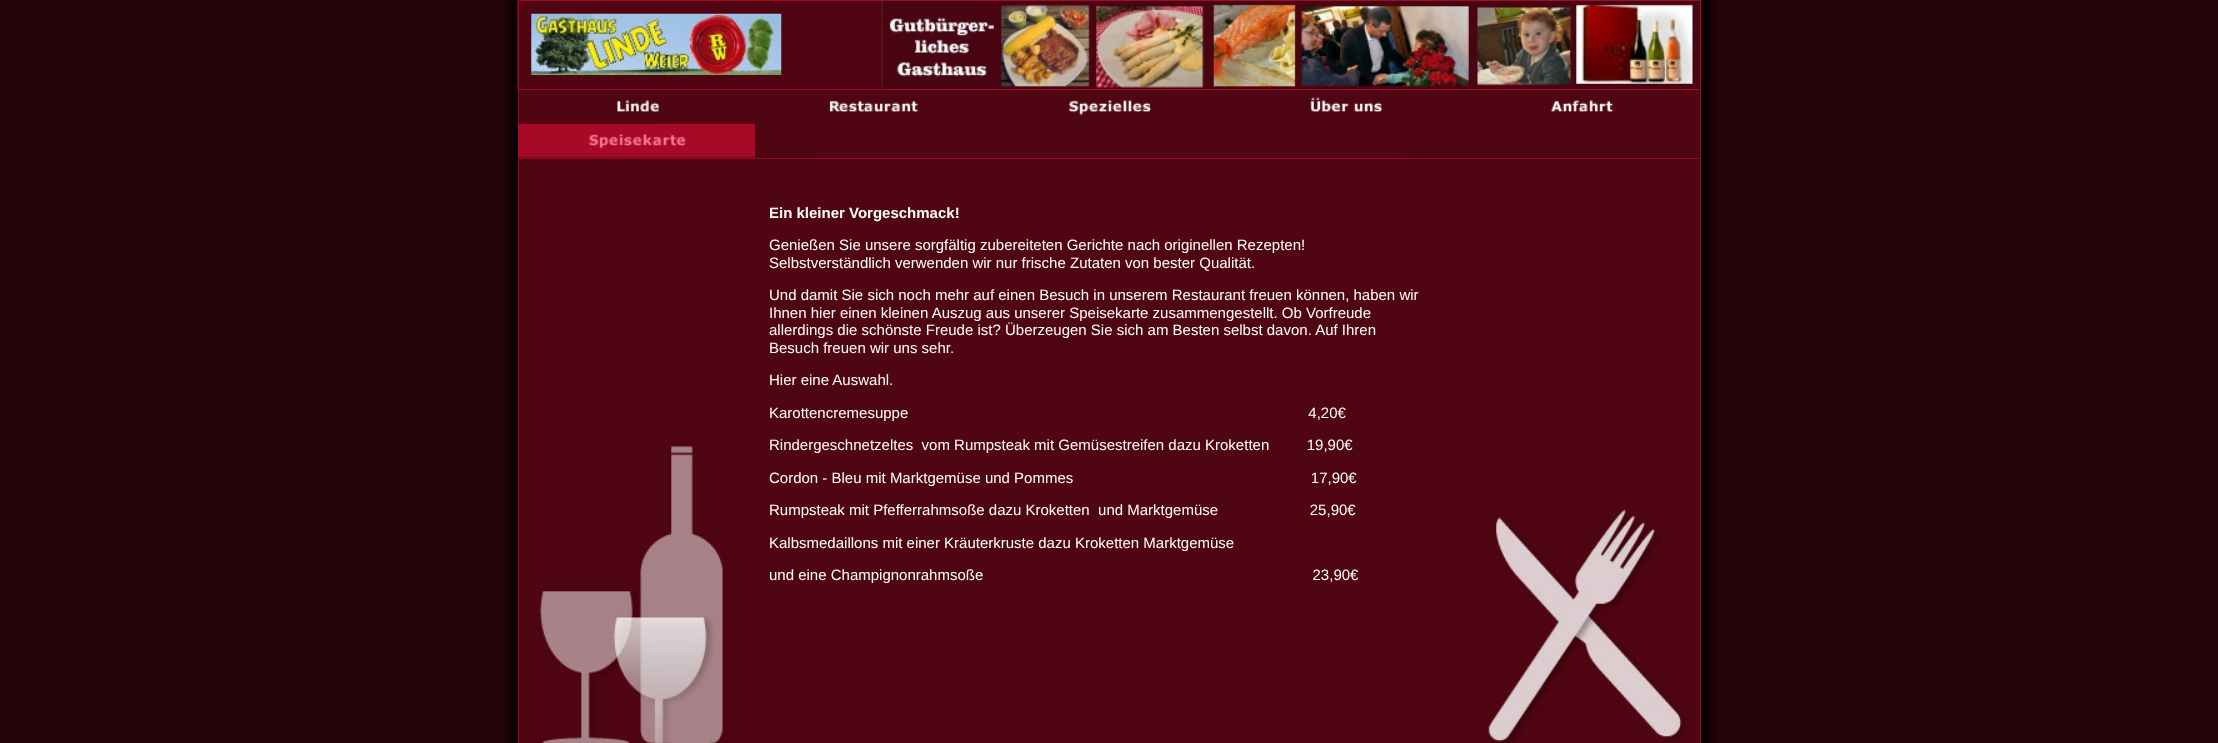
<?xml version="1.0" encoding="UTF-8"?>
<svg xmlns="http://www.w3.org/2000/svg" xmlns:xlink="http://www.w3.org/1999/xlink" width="2218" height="743">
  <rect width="100%" height="100%" fill="#260209" />
  <image x="503" y="0" width="15" height="743" xlink:href="image1.png" />
  <rect x="517" y="1" width="1185" height="88" fill="#4f0512" />
  <rect x="518" width="1183" height="1" fill="#a60a27" />
  <rect x="1700" width="1" height="743" fill="#a60a27" />
  <rect x="518" width="1" height="743" fill="#a60a27" />
  <image x="531" y="13" width="251" height="62" xlink:href="image2.png" />
  <image x="881" y="1" width="819" height="88" xlink:href="image3.png" />
  <rect x="519" y="90" width="1181" height="68" fill="#4f0512" />
  <rect x="519" y="89" width="1181" height="1" fill="#a60a27" />
  <rect x="519" y="158" width="1181" height="1" fill="#a60a27" />
  <image x="518" y="90" width="141" height="34" xlink:href="image4.png" />
  <image x="829" y="101" width="89" height="12" xlink:href="image5.png" />
  <image x="1068" y="99" width="84" height="17" xlink:href="image6.png" />
  <image x="1310" y="97" width="73" height="16" xlink:href="image7.png" />
  <image x="1551" y="99" width="62" height="14" xlink:href="image8.png" />
  <image x="519" y="123" width="236" height="35" xlink:href="image9.png" />
  <rect x="815" y="159" width="589" height="584" fill="#4f0512" />
  <image x="518" y="158" width="297" height="585" xlink:href="image10.png" />
  <image x="1403" y="158" width="297" height="585" xlink:href="image11.png" />
  <image x="1701" y="0" width="16" height="743" xlink:href="image12.png" />
  <text x="769" y="218" style="font-family: Liberation Sans; font-size: 15px; font-weight: bold; fill: #ffffff">Ein kleiner Vorgeschmack!</text>
  <text x="769" y="250" style="font-family: Liberation Sans; font-size: 15px; fill: #ffffff">Genießen Sie unsere sorgfältig zubereiteten Gerichte nach originellen Rezepten!</text>
  <text x="769" y="268" style="font-family: Liberation Sans; font-size: 15px; fill: #ffffff">Selbstverständlich verwenden wir nur frische Zutaten von bester Qualität.</text>
  <text x="769" y="300" style="font-family: Liberation Sans; font-size: 15px; fill: #ffffff">Und damit Sie sich noch mehr auf einen Besuch in unserem Restaurant freuen können, haben wir</text>
  <text x="769" y="318" style="font-family: Liberation Sans; font-size: 15px; fill: #ffffff">Ihnen hier einen kleinen Auszug aus unserer Speisekarte zusammengestellt. Ob Vorfreude</text>
  <text x="769" y="335" style="font-family: Liberation Sans; font-size: 15px; fill: #ffffff">allerdings die schönste Freude ist? Überzeugen Sie sich am Besten selbst davon. Auf Ihren</text>
  <text x="769" y="353" style="font-family: Liberation Sans; font-size: 15px; fill: #ffffff">Besuch freuen wir uns sehr.</text>
  <text x="769" y="385" style="font-family: Liberation Sans; font-size: 15px; fill: #ffffff">Hier eine Auswahl.</text>
  <text x="769" y="418" style="font-family: Liberation Sans; font-size: 15px; fill: #ffffff" xml:space="preserve">Karottencremesuppe                                                                                                4,20€</text>
  <text x="769" y="450" style="font-family: Liberation Sans; font-size: 15px; fill: #ffffff" xml:space="preserve">Rindergeschnetzeltes  vom Rumpsteak mit Gemüsestreifen dazu Kroketten         19,90€</text>
  <text x="769" y="483" style="font-family: Liberation Sans; font-size: 15px; fill: #ffffff" xml:space="preserve">Cordon - Bleu mit Marktgemüse und Pommes                                                         17,90€</text>
  <text x="769" y="515" style="font-family: Liberation Sans; font-size: 15px; fill: #ffffff" xml:space="preserve">Rumpsteak mit Pfefferrahmsoße dazu Kroketten  und Marktgemüse                      25,90€</text>
  <text x="769" y="548" style="font-family: Liberation Sans; font-size: 15px; fill: #ffffff">Kalbsmedaillons mit einer Kräuterkruste dazu Kroketten Marktgemüse</text>
  <text x="769" y="580" style="font-family: Liberation Sans; font-size: 15px; fill: #ffffff" xml:space="preserve">und eine Champignonrahmsoße                                                                               23,90€</text>
</svg>
